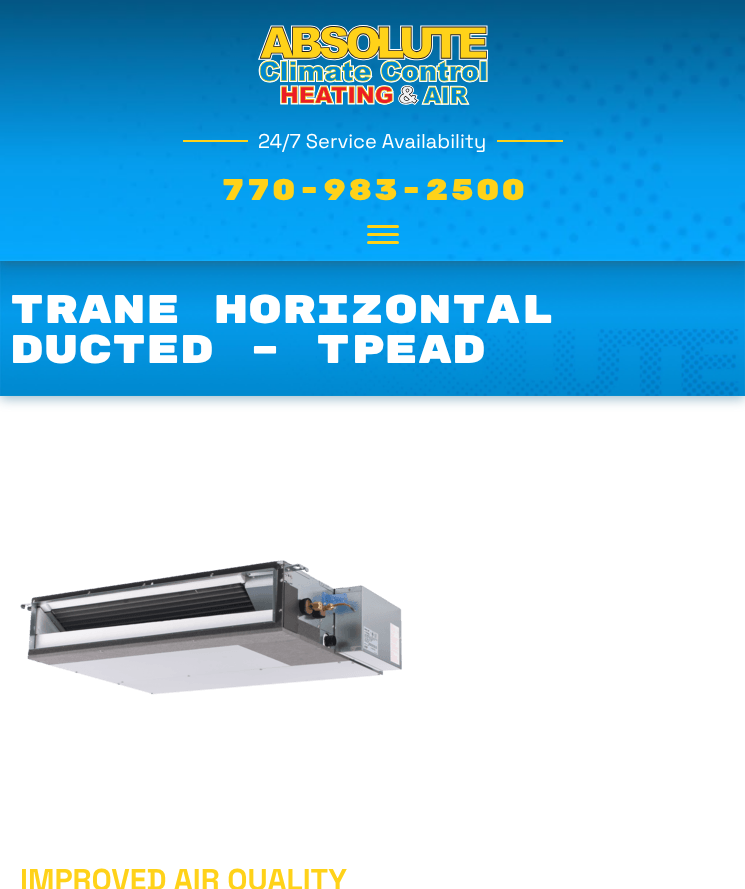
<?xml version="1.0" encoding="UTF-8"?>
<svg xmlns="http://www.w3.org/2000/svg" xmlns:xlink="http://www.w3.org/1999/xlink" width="745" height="889">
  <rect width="100%" height="100%" fill="#ffffff" />
  <rect y="264" width="745" height="135" fill="#0f5a80" fill-opacity="0.4" filter="blur(6px)" />
  <image x="0" y="261" width="745" height="135" xlink:href="image3.png" />
  <rect y="2" width="745" height="261" fill="#4c4c4c" fill-opacity="0.42" filter="blur(5.5px)" />
  <image x="0" y="0" width="745" height="261" xlink:href="image1.png" />
  <image x="258" y="25" width="230" height="80" xlink:href="image2.png" />
  <rect x="183" y="140" width="65" height="2" fill="#ffd219" />
  <rect x="497" y="140" width="66" height="2" fill="#ffd219" />
  <rect x="367" y="225" width="32" height="3" rx="1.5" fill="#ffd218" />
  <rect x="367" y="233" width="32" height="3" rx="1.5" fill="#ffd218" />
  <rect x="367" y="241" width="32" height="3" rx="1.5" fill="#ffd218" />
  <image x="20" y="560" width="383" height="135" xlink:href="image4.png" />
  <text x="258" y="148" style="font-family: Space Grotesk; font-size: 20px; fill: #ffffff">24/7 Service Availability</text>
  <text x="220" y="200" style="font-family: Rubik Mono One; font-size: 30px; fill: #ffd219">770-983-2500</text>
  <text x="10" y="323" style="font-family: Rubik Mono One; font-size: 40px; fill: #ffffff">TRANE HORIZONTAL</text>
  <text x="10" y="363" style="font-family: Rubik Mono One; font-size: 40px; fill: #ffffff">DUCTED – TPEAD</text>
  <text x="20" y="890" style="font-family: Space Grotesk; font-size: 30px; font-weight: bold; fill: #ffd219">IMPROVED AIR QUALITY</text>
</svg>
